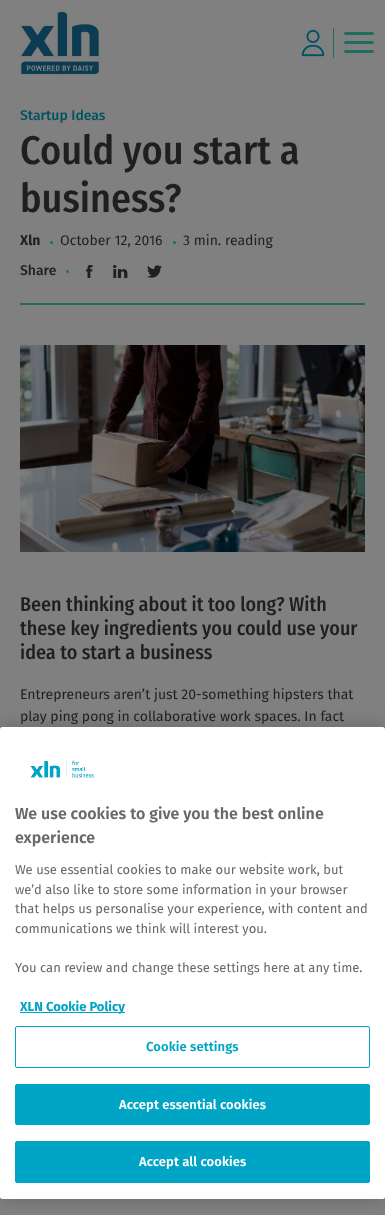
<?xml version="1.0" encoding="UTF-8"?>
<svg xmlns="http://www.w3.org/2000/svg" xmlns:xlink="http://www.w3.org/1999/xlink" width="385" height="1215">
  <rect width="100%" height="100%" fill="#808080" />
  <image x="20" y="10" width="80" height="65" xlink:href="image1.png" />
  <rect x="333" y="28" width="1" height="30" fill="#1e6e60" />
  <image x="301" y="29" width="24" height="28" xlink:href="image2.png" />
  <rect x="344" y="32" width="30" height="3" rx="1.5" fill="#1e6e60" />
  <rect x="344" y="41" width="30" height="3" rx="1.5" fill="#1e6e60" />
  <rect x="344" y="50" width="30" height="3" rx="1.5" fill="#1e6e60" />
  <rect x="20" y="303" width="345" height="2" fill="#1e6e60" />
  <circle cx="51.5" cy="242.5" r="1.5" fill="#1e6e60" />
  <circle cx="174.5" cy="242.5" r="1.5" fill="#1e6e60" />
  <circle cx="67.5" cy="271.5" r="1.5" fill="#1e6e60" />
  <image x="86" y="265" width="7" height="13" xlink:href="image3.png" />
  <image x="113" y="265" width="15" height="13" xlink:href="image4.png" />
  <image x="147" y="265" width="15" height="13" xlink:href="image5.png" />
  <image x="20" y="345" width="345" height="207" xlink:href="image6.png" />
  <rect y="727" width="385" height="472" rx="2.5" fill="#000000" fill-opacity="0.2" filter="blur(9px)" />
  <rect y="727" width="385" height="472" rx="2.5" fill="#ffffff" />
  <image x="30" y="760" width="64" height="18" xlink:href="image7.png" />
  <rect x="20" y="1012" width="105" height="1" fill="#00a4c4" />
  <rect x="15.5" y="1026.5" width="354" height="41" rx="1.5" fill="none" stroke="#00a4c4" />
  <rect x="15.5" y="1084.5" width="354" height="40" rx="1.5" fill="#00a4c4" stroke="#00a4c4" />
  <rect x="15.5" y="1141.5" width="354" height="41" rx="1.5" fill="#00a4c4" stroke="#00a4c4" />
  <text x="20" y="120" style="font-family: Fira Sans; font-size: 14px; font-weight: 500; fill: #005262">Startup Ideas</text>
  <text x="20" y="164" style="font-family: Fira Sans Condensed; font-size: 40px; font-weight: 500; fill: #1f1f20">Could you start a</text>
  <text x="20" y="212" style="font-family: Fira Sans Condensed; font-size: 40px; font-weight: 500; fill: #1f1f20">business?</text>
  <text x="20" y="245" style="font-family: Fira Sans; font-size: 14px; font-weight: bold; fill: #1f1f20">Xln</text>
  <text x="60" y="245" style="font-family: Fira Sans; font-size: 14px; fill: #1f1f20">October 12, 2016</text>
  <text x="183" y="245" style="font-family: Fira Sans; font-size: 14px; fill: #1f1f20">3 min. reading</text>
  <text x="20" y="275" style="font-family: Fira Sans; font-size: 14px; font-weight: 500; fill: #1f1f20">Share</text>
  <text x="20" y="611" style="font-family: Fira Sans Condensed; font-size: 20px; font-weight: 500; fill: #1f1f20">Been thinking about it too long? With</text>
  <text x="20" y="635" style="font-family: Fira Sans Condensed; font-size: 20px; font-weight: 500; fill: #1f1f20">these key ingredients you could use your</text>
  <text x="20" y="659" style="font-family: Fira Sans Condensed; font-size: 20px; font-weight: 500; fill: #1f1f20">idea to start a business</text>
  <text x="20" y="699" style="font-family: Fira Sans; font-size: 14px; fill: #1f1f20">Entrepreneurs aren’t just 20-something hipsters that</text>
  <text x="20" y="721" style="font-family: Fira Sans; font-size: 14px; fill: #1f1f20">play ping pong in collaborative work spaces. In fact</text>
  <text x="15" y="819" style="font-family: Fira Sans; font-size: 16px; font-weight: 600; fill: #696969">We use cookies to give you the best online</text>
  <text x="15" y="843" style="font-family: Fira Sans; font-size: 16px; font-weight: 600; fill: #696969">experience</text>
  <text x="15" y="874" style="font-family: Fira Sans; font-size: 13px; fill: #696969">We use essential cookies to make our website work, but</text>
  <text x="15" y="894" style="font-family: Fira Sans; font-size: 13px; fill: #696969">we’d also like to store some information in your browser</text>
  <text x="15" y="913" style="font-family: Fira Sans; font-size: 13px; fill: #696969">that helps us personalise your experience, with content and</text>
  <text x="15" y="933" style="font-family: Fira Sans; font-size: 13px; fill: #696969">communications we think will interest you.</text>
  <text x="15" y="972" style="font-family: Fira Sans; font-size: 13px; fill: #696969">You can review and change these settings here at any time.</text>
  <text x="20" y="1011" style="font-family: Fira Sans; font-size: 13px; font-weight: bold; fill: #00a4c4">XLN Cookie Policy</text>
  <text x="146" y="1051" style="font-family: Fira Sans; font-size: 13px; font-weight: 600; letter-spacing: 0.1px; fill: #00a4c4">Cookie settings</text>
  <text x="119" y="1109" style="font-family: Fira Sans; font-size: 13px; font-weight: 600; letter-spacing: 0.1px; fill: #ffffff">Accept essential cookies</text>
  <text x="139" y="1166" style="font-family: Fira Sans; font-size: 13px; font-weight: 600; letter-spacing: 0.1px; fill: #ffffff">Accept all cookies</text>
</svg>
